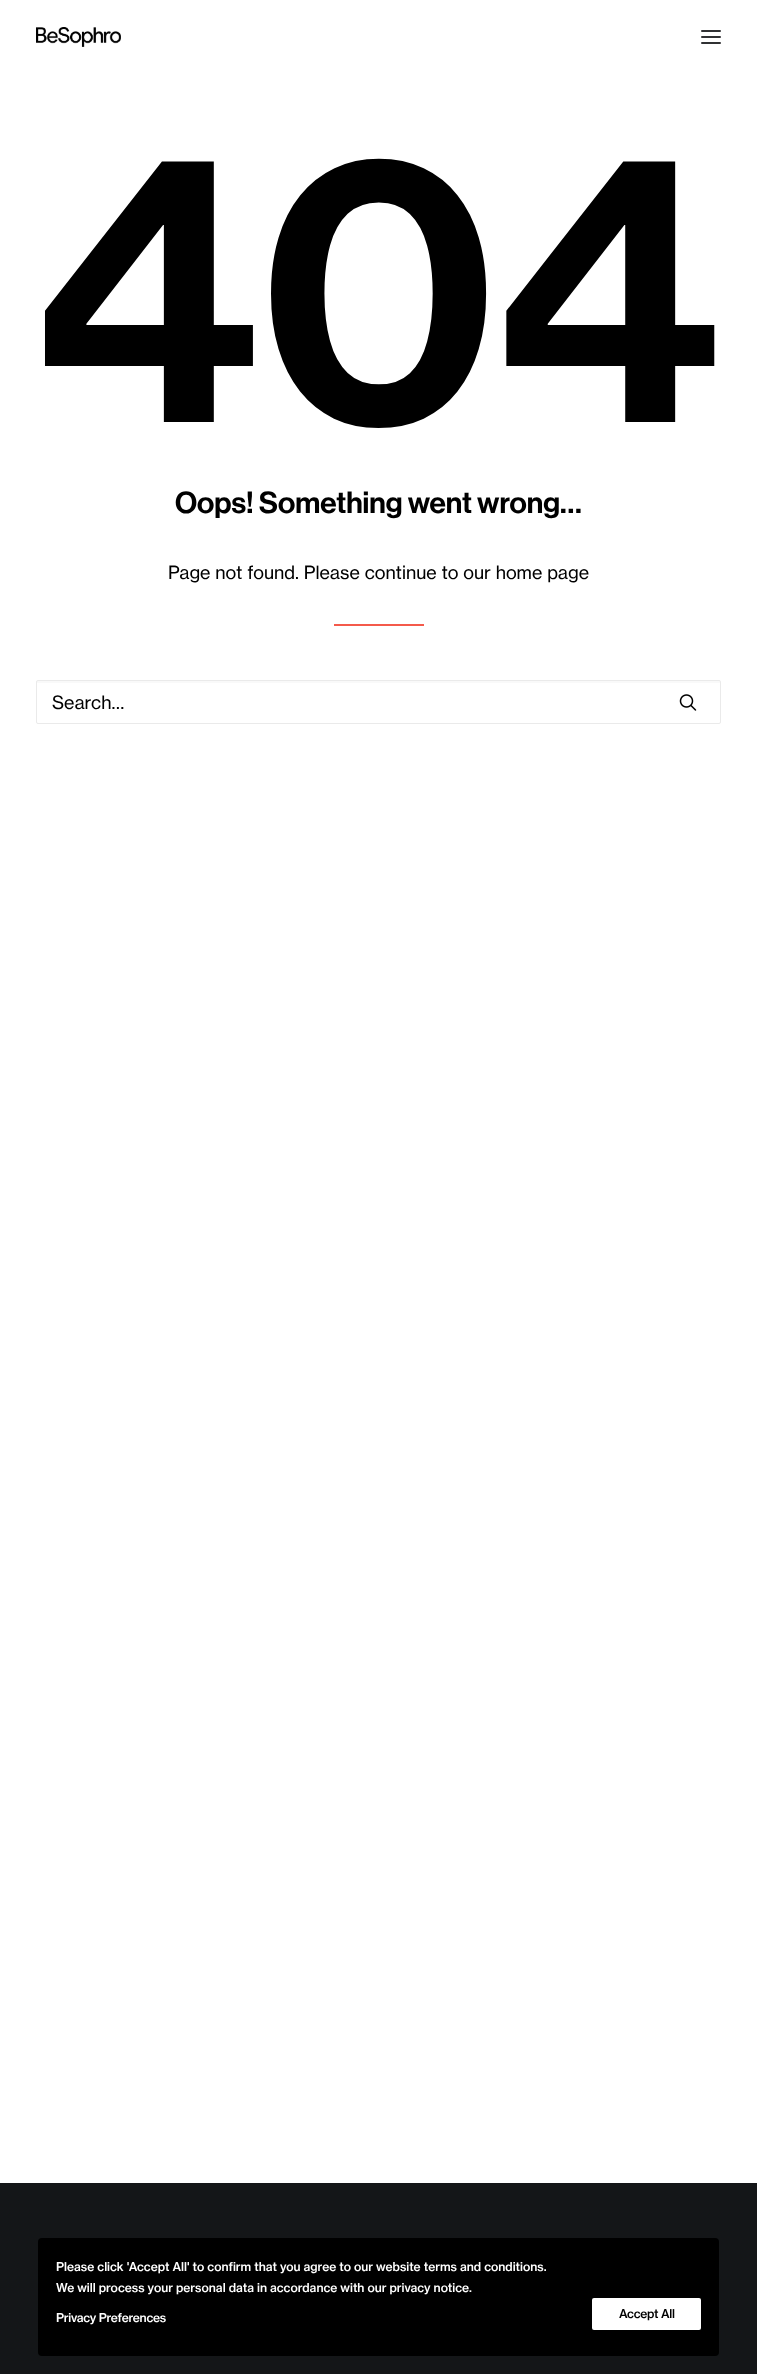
<?xml version="1.0" encoding="UTF-8"?>
<svg xmlns="http://www.w3.org/2000/svg" xmlns:xlink="http://www.w3.org/1999/xlink" width="757" height="2374">
  <rect width="100%" height="100%" fill="#ffffff" />
  <image x="36" y="27" width="85" height="20" xlink:href="image1.png" />
  <rect x="701" y="36" width="20" height="2" rx="1" fill="#303133" />
  <rect x="701" y="30" width="20" height="2" rx="1" fill="#303133" />
  <rect x="701" y="42" width="20" height="2" rx="1" fill="#303133" />
  <rect x="334" y="624" width="90" height="2" fill="#f45a4b" />
  <path d="M 38 683 h 681 c 1 0 1 0 1 1 c 0 -1 0 -3 -1 -3 h -681 h -1 v 3 c 0 -1 0 -1 1 -1 z" fill="#f9f9f9" />
  <rect x="36.5" y="680.5" width="684" height="43" rx="1.5" fill="none" stroke="#eaeaea" />
  <image x="679" y="694" width="18" height="17" xlink:href="image2.png" />
  <rect y="2183" width="757" height="191" fill="#141618" />
  <rect x="38" y="2238" width="681" height="118" rx="4" fill="#000000" />
  <rect x="592" y="2298" width="109" height="32" rx="2" fill="#ffffff" />
  <text x="36" y="422" style="font-family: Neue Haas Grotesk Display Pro; font-size: 376px; font-weight: 500; fill: #000000">404</text>
  <text x="175" y="513" style="font-family: Neue Haas Grotesk Display Pro; font-size: 30px; font-weight: 500; fill: #000000">Oops! Something went wrong…</text>
  <text x="168" y="579" style="font-family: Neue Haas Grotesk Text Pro; font-size: 18px; fill: #000000">Page not found. Please continue to our home page</text>
  <text x="52" y="709" style="font-family: Neue Haas Grotesk Text Pro; font-size: 18px; fill: #000000">Search…</text>
  <text x="56" y="2271" style="font-family: Neue Haas Grotesk Text Pro; font-size: 12px; font-weight: 500; fill: #ffffff">Please click 'Accept All' to confirm that you agree to our website terms and conditions.</text>
  <text x="56" y="2292" style="font-family: Neue Haas Grotesk Text Pro; font-size: 12px; font-weight: 500; fill: #ffffff">We will process your personal data in accordance with our privacy notice.</text>
  <text x="56" y="2322" style="font-family: Neue Haas Grotesk Text Pro; font-size: 12px; font-weight: 500; letter-spacing: -0.25px; fill: #ffffff">Privacy Preferences</text>
  <text x="619" y="2318" style="font-family: Neue Haas Grotesk Text Pro; font-size: 12px; font-weight: 500; letter-spacing: -0.25px; fill: #000000">Accept All</text>
</svg>
